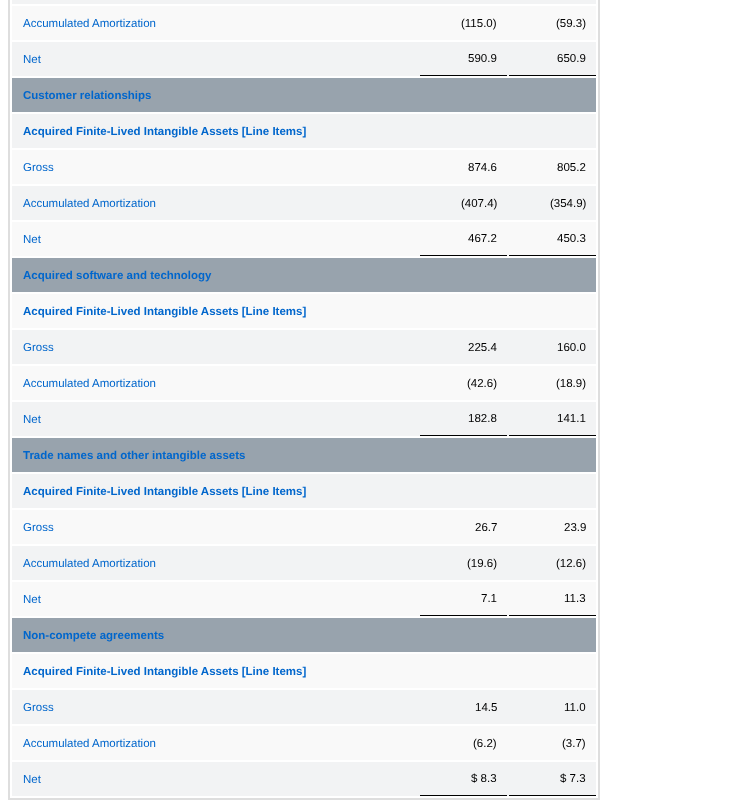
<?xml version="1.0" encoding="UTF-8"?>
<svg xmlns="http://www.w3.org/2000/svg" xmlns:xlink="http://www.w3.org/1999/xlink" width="756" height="800">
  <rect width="100%" height="100%" fill="#ffffff" />
  <rect x="9" y="-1" width="590" height="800" fill="none" stroke="#dedede" stroke-width="2" />
  <rect x="12" width="584" height="4" fill="#f2f3f4" />
  <rect x="12" y="6" width="584" height="34" fill="#f9f9f9" />
  <rect x="12" y="42" width="584" height="34" fill="#f2f3f4" />
  <rect x="420" y="75" width="87" height="1" fill="#000000" />
  <rect x="509" y="75" width="87" height="1" fill="#000000" />
  <rect x="12" y="78" width="584" height="34" fill="#98a3ad" />
  <rect x="12" y="114" width="584" height="34" fill="#f2f3f4" />
  <rect x="12" y="150" width="584" height="34" fill="#f9f9f9" />
  <rect x="12" y="186" width="584" height="34" fill="#f2f3f4" />
  <rect x="12" y="222" width="584" height="34" fill="#f9f9f9" />
  <rect x="420" y="255" width="87" height="1" fill="#000000" />
  <rect x="509" y="255" width="87" height="1" fill="#000000" />
  <rect x="12" y="258" width="584" height="34" fill="#98a3ad" />
  <rect x="12" y="294" width="584" height="34" fill="#f9f9f9" />
  <rect x="12" y="330" width="584" height="34" fill="#f2f3f4" />
  <rect x="12" y="366" width="584" height="34" fill="#f9f9f9" />
  <rect x="12" y="402" width="584" height="34" fill="#f2f3f4" />
  <rect x="420" y="435" width="87" height="1" fill="#000000" />
  <rect x="509" y="435" width="87" height="1" fill="#000000" />
  <rect x="12" y="438" width="584" height="34" fill="#98a3ad" />
  <rect x="12" y="474" width="584" height="34" fill="#f2f3f4" />
  <rect x="12" y="510" width="584" height="34" fill="#f9f9f9" />
  <rect x="12" y="546" width="584" height="34" fill="#f2f3f4" />
  <rect x="12" y="582" width="584" height="34" fill="#f9f9f9" />
  <rect x="420" y="615" width="87" height="1" fill="#000000" />
  <rect x="509" y="615" width="87" height="1" fill="#000000" />
  <rect x="12" y="618" width="584" height="34" fill="#98a3ad" />
  <rect x="12" y="654" width="584" height="34" fill="#f9f9f9" />
  <rect x="12" y="690" width="584" height="34" fill="#f2f3f4" />
  <rect x="12" y="726" width="584" height="34" fill="#f9f9f9" />
  <rect x="12" y="762" width="584" height="34" fill="#f2f3f4" />
  <rect x="420" y="795" width="87" height="1" fill="#000000" />
  <rect x="509" y="795" width="87" height="1" fill="#000000" />
  <text x="23" y="27" style="font-family: Liberation Sans; font-size: 11.5px; fill: #0066cc">Accumulated Amortization</text>
  <text x="461" y="27" style="font-family: Liberation Sans; font-size: 11.5px; fill: #000000">(115.0)</text>
  <text x="556" y="27" style="font-family: Liberation Sans; font-size: 11.5px; fill: #000000">(59.3)</text>
  <text x="23" y="63" style="font-family: Liberation Sans; font-size: 11.5px; fill: #0066cc">Net</text>
  <text x="468" y="62" style="font-family: Liberation Sans; font-size: 11.5px; fill: #000000">590.9</text>
  <text x="557" y="62" style="font-family: Liberation Sans; font-size: 11.5px; fill: #000000">650.9</text>
  <text x="23" y="99" style="font-family: Liberation Sans; font-size: 11.5px; font-weight: bold; fill: #0066cc">Customer relationships</text>
  <text x="23" y="135" style="font-family: Liberation Sans; font-size: 11.5px; font-weight: bold; fill: #0066cc">Acquired Finite-Lived Intangible Assets [Line Items]</text>
  <text x="23" y="171" style="font-family: Liberation Sans; font-size: 11.5px; fill: #0066cc">Gross</text>
  <text x="468" y="171" style="font-family: Liberation Sans; font-size: 11.5px; fill: #000000">874.6</text>
  <text x="557" y="171" style="font-family: Liberation Sans; font-size: 11.5px; fill: #000000">805.2</text>
  <text x="23" y="207" style="font-family: Liberation Sans; font-size: 11.5px; fill: #0066cc">Accumulated Amortization</text>
  <text x="461" y="207" style="font-family: Liberation Sans; font-size: 11.5px; fill: #000000">(407.4)</text>
  <text x="550" y="207" style="font-family: Liberation Sans; font-size: 11.5px; fill: #000000">(354.9)</text>
  <text x="23" y="243" style="font-family: Liberation Sans; font-size: 11.5px; fill: #0066cc">Net</text>
  <text x="468" y="242" style="font-family: Liberation Sans; font-size: 11.5px; fill: #000000">467.2</text>
  <text x="557" y="242" style="font-family: Liberation Sans; font-size: 11.5px; fill: #000000">450.3</text>
  <text x="23" y="279" style="font-family: Liberation Sans; font-size: 11.5px; font-weight: bold; fill: #0066cc">Acquired software and technology</text>
  <text x="23" y="315" style="font-family: Liberation Sans; font-size: 11.5px; font-weight: bold; fill: #0066cc">Acquired Finite-Lived Intangible Assets [Line Items]</text>
  <text x="23" y="351" style="font-family: Liberation Sans; font-size: 11.5px; fill: #0066cc">Gross</text>
  <text x="468" y="351" style="font-family: Liberation Sans; font-size: 11.5px; fill: #000000">225.4</text>
  <text x="557" y="351" style="font-family: Liberation Sans; font-size: 11.5px; fill: #000000">160.0</text>
  <text x="23" y="387" style="font-family: Liberation Sans; font-size: 11.5px; fill: #0066cc">Accumulated Amortization</text>
  <text x="467" y="387" style="font-family: Liberation Sans; font-size: 11.5px; fill: #000000">(42.6)</text>
  <text x="556" y="387" style="font-family: Liberation Sans; font-size: 11.5px; fill: #000000">(18.9)</text>
  <text x="23" y="423" style="font-family: Liberation Sans; font-size: 11.5px; fill: #0066cc">Net</text>
  <text x="468" y="422" style="font-family: Liberation Sans; font-size: 11.5px; fill: #000000">182.8</text>
  <text x="557" y="422" style="font-family: Liberation Sans; font-size: 11.5px; fill: #000000">141.1</text>
  <text x="23" y="459" style="font-family: Liberation Sans; font-size: 11.5px; font-weight: bold; fill: #0066cc">Trade names and other intangible assets</text>
  <text x="23" y="495" style="font-family: Liberation Sans; font-size: 11.5px; font-weight: bold; fill: #0066cc">Acquired Finite-Lived Intangible Assets [Line Items]</text>
  <text x="23" y="531" style="font-family: Liberation Sans; font-size: 11.5px; fill: #0066cc">Gross</text>
  <text x="475" y="531" style="font-family: Liberation Sans; font-size: 11.5px; fill: #000000">26.7</text>
  <text x="564" y="531" style="font-family: Liberation Sans; font-size: 11.5px; fill: #000000">23.9</text>
  <text x="23" y="567" style="font-family: Liberation Sans; font-size: 11.5px; fill: #0066cc">Accumulated Amortization</text>
  <text x="467" y="567" style="font-family: Liberation Sans; font-size: 11.5px; fill: #000000">(19.6)</text>
  <text x="556" y="567" style="font-family: Liberation Sans; font-size: 11.5px; fill: #000000">(12.6)</text>
  <text x="23" y="603" style="font-family: Liberation Sans; font-size: 11.5px; fill: #0066cc">Net</text>
  <text x="481" y="602" style="font-family: Liberation Sans; font-size: 11.5px; fill: #000000">7.1</text>
  <text x="564" y="602" style="font-family: Liberation Sans; font-size: 11.5px; fill: #000000">11.3</text>
  <text x="23" y="639" style="font-family: Liberation Sans; font-size: 11.5px; font-weight: bold; fill: #0066cc">Non-compete agreements</text>
  <text x="23" y="675" style="font-family: Liberation Sans; font-size: 11.5px; font-weight: bold; fill: #0066cc">Acquired Finite-Lived Intangible Assets [Line Items]</text>
  <text x="23" y="711" style="font-family: Liberation Sans; font-size: 11.5px; fill: #0066cc">Gross</text>
  <text x="475" y="711" style="font-family: Liberation Sans; font-size: 11.5px; fill: #000000">14.5</text>
  <text x="564" y="711" style="font-family: Liberation Sans; font-size: 11.5px; fill: #000000">11.0</text>
  <text x="23" y="747" style="font-family: Liberation Sans; font-size: 11.5px; fill: #0066cc">Accumulated Amortization</text>
  <text x="473" y="747" style="font-family: Liberation Sans; font-size: 11.5px; fill: #000000">(6.2)</text>
  <text x="562" y="747" style="font-family: Liberation Sans; font-size: 11.5px; fill: #000000">(3.7)</text>
  <text x="23" y="783" style="font-family: Liberation Sans; font-size: 11.5px; fill: #0066cc">Net</text>
  <text x="471" y="782" style="font-family: Liberation Sans; font-size: 11.5px; fill: #000000">$ 8.3</text>
  <text x="560" y="782" style="font-family: Liberation Sans; font-size: 11.5px; fill: #000000">$ 7.3</text>
</svg>
